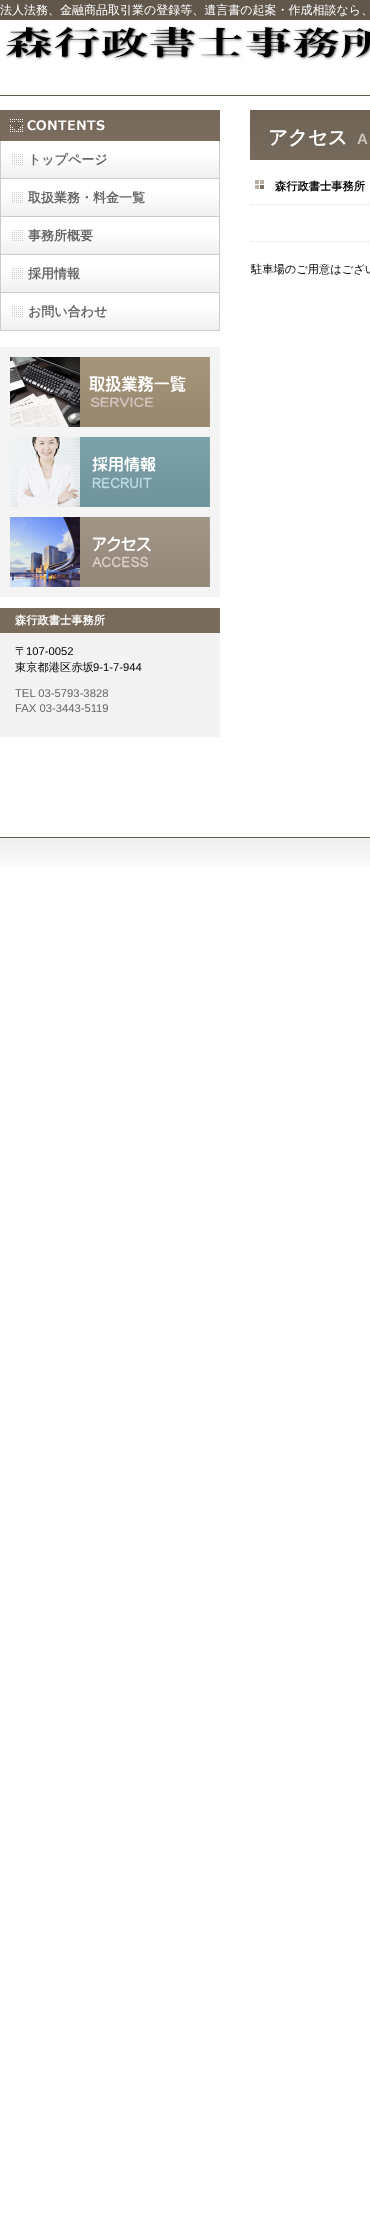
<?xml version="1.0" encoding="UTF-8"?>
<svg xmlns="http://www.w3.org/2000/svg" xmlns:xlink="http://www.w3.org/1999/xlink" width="370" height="2231">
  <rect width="100%" height="100%" fill="#ffffff" />
  <image x="0" y="0" width="370" height="96" xlink:href="image1.png" />
  <image x="0" y="837" width="370" height="30" xlink:href="image2.png" />
  <image x="6" y="26" width="364" height="35" xlink:href="image3.png" />
  <image x="0" y="110" width="220" height="31" xlink:href="image4.png" />
  <rect x="219" y="141" width="1" height="190" fill="#cccccc" />
  <rect y="178" width="220" height="1" fill="#cccccc" />
  <rect y="141" width="1" height="38" fill="#cccccc" />
  <image x="1" y="154" width="218" height="24" xlink:href="image5.png" />
  <rect y="216" width="220" height="1" fill="#cccccc" />
  <rect y="179" width="1" height="38" fill="#cccccc" />
  <image x="1" y="192" width="218" height="24" xlink:href="image5.png" />
  <rect y="254" width="220" height="1" fill="#cccccc" />
  <rect y="217" width="1" height="38" fill="#cccccc" />
  <image x="1" y="230" width="218" height="24" xlink:href="image5.png" />
  <rect y="292" width="220" height="1" fill="#cccccc" />
  <rect y="255" width="1" height="38" fill="#cccccc" />
  <image x="1" y="268" width="218" height="24" xlink:href="image5.png" />
  <rect y="330" width="220" height="1" fill="#cccccc" />
  <rect y="293" width="1" height="38" fill="#cccccc" />
  <image x="1" y="306" width="218" height="24" xlink:href="image5.png" />
  <image x="250" y="110" width="120" height="50" xlink:href="image6.png" />
  <image x="255" y="180" width="9" height="9" xlink:href="image7.png" />
  <path d="M 250 204.5 h 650" fill="none" stroke="#dddddd" stroke-dasharray="1 1" />
  <path d="M 250 241.5 h 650" fill="none" stroke="#dddddd" stroke-dasharray="1 1" />
  <rect y="347" width="220" height="250" fill="#f4f4f4" />
  <image x="10" y="357" width="200" height="70" xlink:href="image8.png" />
  <image x="10" y="437" width="200" height="70" xlink:href="image9.png" />
  <image x="10" y="517" width="200" height="70" xlink:href="image10.png" />
  <rect y="633" width="220" height="104" fill="#f3f3f3" />
  <rect y="608" width="220" height="25" fill="#786b5c" />
  <text x="0" y="14" style="font-family: WenQuanYi Zen Hei; font-size: 12px; font-weight: 500; fill: #ffffff">法人法務、金融商品取引業の登録等、遺言書の起案・作成相談なら、</text>
  <text x="28" y="164" style="font-family: WenQuanYi Zen Hei; font-size: 13px; font-weight: bold; fill: #666666">トップページ</text>
  <text x="28" y="202" style="font-family: WenQuanYi Zen Hei; font-size: 13px; font-weight: bold; fill: #666666">取扱業務・料金一覧</text>
  <text x="28" y="240" style="font-family: WenQuanYi Zen Hei; font-size: 13px; font-weight: bold; fill: #666666">事務所概要</text>
  <text x="28" y="278" style="font-family: WenQuanYi Zen Hei; font-size: 13px; font-weight: bold; fill: #666666">採用情報</text>
  <text x="28" y="316" style="font-family: WenQuanYi Zen Hei; font-size: 13px; font-weight: bold; fill: #666666">お問い合わせ</text>
  <text x="268" y="144" style="font-family: WenQuanYi Zen Hei; font-size: 19.5px; font-weight: bold; fill: #ffffff">アクセス</text>
  <text x="357" y="144" style="font-family: Liberation Sans; font-size: 15px; font-weight: bold; fill: #c9c4bc">A</text>
  <text x="275" y="190" style="font-family: WenQuanYi Zen Hei; font-size: 11.25px; font-weight: bold; fill: #000000">森行政書士事務所</text>
  <text x="251" y="273" style="font-family: WenQuanYi Zen Hei; font-size: 11.25px; font-weight: 500; fill: #000000">駐車場のご用意はござい</text>
  <text x="15" y="624" style="font-family: WenQuanYi Zen Hei; font-size: 11.25px; font-weight: bold; fill: #ffffff">森行政書士事務所</text>
  <text x="15" y="655" style="font-family: WenQuanYi Zen Hei; font-size: 11.25px; font-weight: 500; fill: #000000">〒</text>
  <text x="26" y="655" style="font-family: Liberation Sans; font-size: 11.25px; fill: #000000">107-0052</text>
  <text x="15" y="671" style="font-family: WenQuanYi Zen Hei; font-size: 11.25px; font-weight: 500; fill: #000000">東京都港区赤坂</text>
  <text x="93" y="671" style="font-family: Liberation Sans; font-size: 11.25px; fill: #000000">9-1-7-944</text>
  <text x="15" y="697" style="font-family: Liberation Sans; font-size: 11.25px; fill: #666666">TEL 03-5793-3828</text>
  <text x="15" y="712" style="font-family: Liberation Sans; font-size: 11.25px; fill: #666666">FAX 03-3443-5119</text>
</svg>
